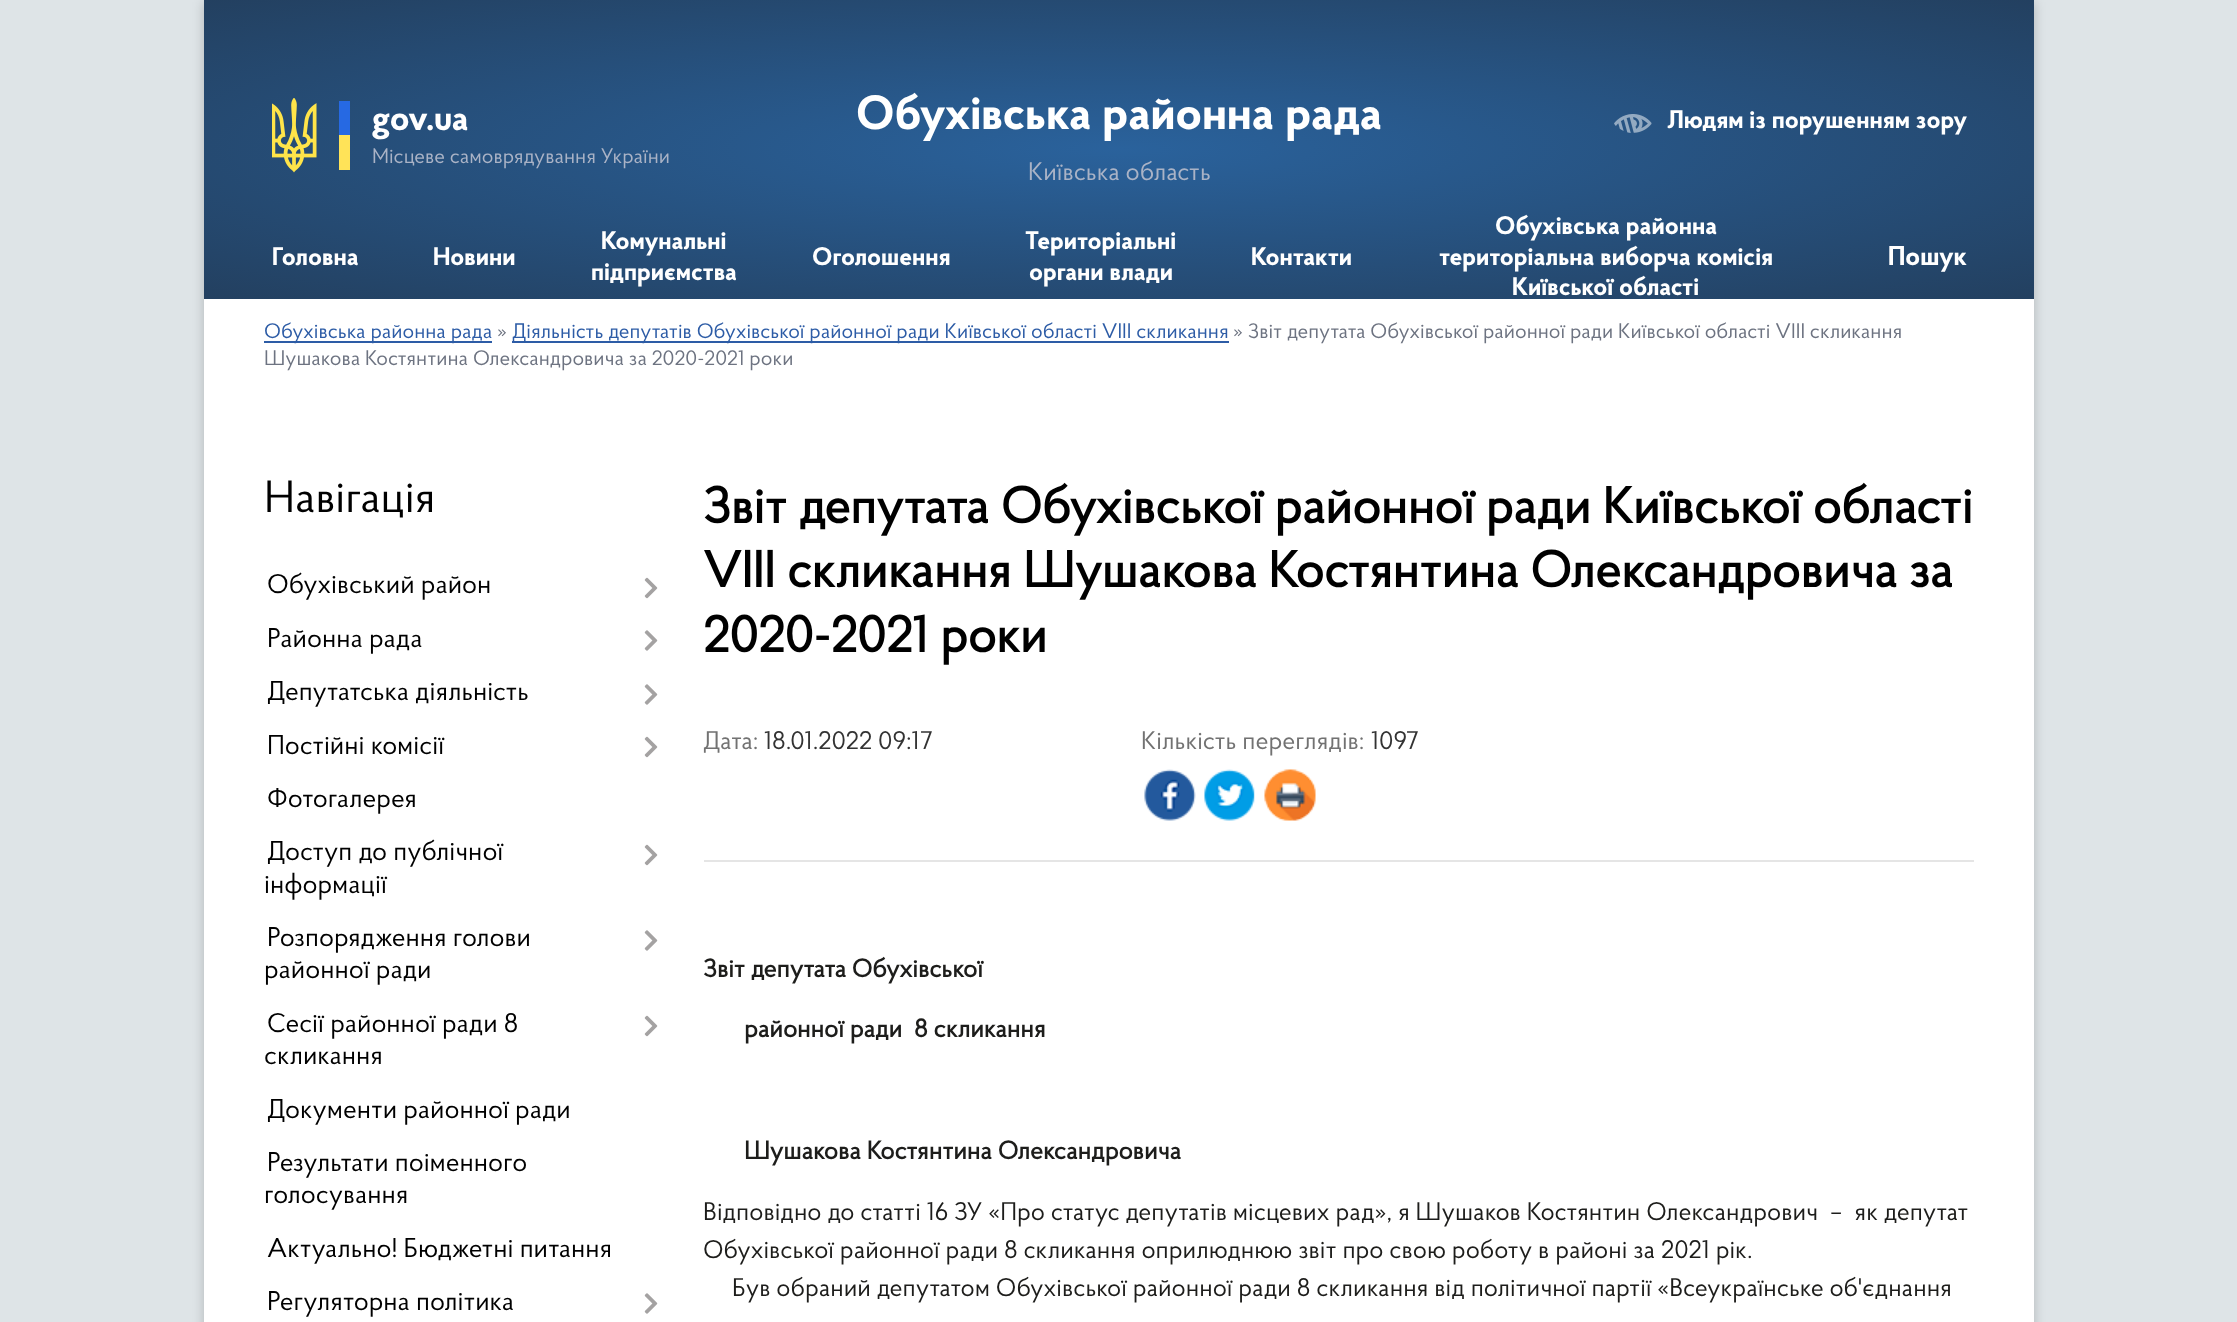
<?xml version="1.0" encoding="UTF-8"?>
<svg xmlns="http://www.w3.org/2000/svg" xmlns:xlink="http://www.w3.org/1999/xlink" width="2237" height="1322">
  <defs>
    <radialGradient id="g1" gradientUnits="userSpaceOnUse" cx="0" cy="0" r="1" gradientTransform="matrix(1294 0 0 211 1119 149)"><stop offset="0" stop-color="#2a629c" /><stop offset="1" stop-color="#234060" /></radialGradient>
  </defs>
  <rect width="100%" height="100%" fill="#dee4e7" />
  <rect x="204" y="2" width="1830" height="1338" fill="#000000" fill-opacity="0.2" filter="blur(6px)" />
  <rect x="204" y="299" width="1830" height="1023" fill="#ffffff" />
  <rect x="204" width="1830" height="299" fill="url(#g1)" />
  <image x="272" y="98" width="45" height="75" xlink:href="image1.png" />
  <rect x="339" y="101" width="11" height="34" fill="#2669e3" />
  <rect x="339" y="135" width="11" height="35" fill="#ffe358" />
  <image x="1614" y="114" width="38" height="19" xlink:href="image2.png" />
  <rect x="264" y="341" width="228" height="2" fill="#2d5ca6" />
  <rect x="512" y="341" width="717" height="2" fill="#2d5ca6" />
  <image x="644" y="577" width="14" height="22" xlink:href="image3.png" />
  <image x="644" y="630" width="14" height="21" xlink:href="image4.png" />
  <image x="644" y="684" width="14" height="21" xlink:href="image4.png" />
  <image x="644" y="736" width="14" height="22" xlink:href="image3.png" />
  <image x="644" y="844" width="14" height="22" xlink:href="image3.png" />
  <image x="644" y="930" width="14" height="21" xlink:href="image4.png" />
  <image x="644" y="1015" width="14" height="22" xlink:href="image3.png" />
  <image x="644" y="1293" width="14" height="21" xlink:href="image4.png" />
  <image x="1144" y="769" width="52" height="52" xlink:href="image5.png" />
  <image x="1204" y="769" width="51" height="52" xlink:href="image6.png" />
  <image x="1264" y="769" width="52" height="52" xlink:href="image7.png" />
  <rect x="704" y="860" width="1270" height="2" fill="#e5e5e5" />
  <text x="372" y="130" style="font-family: 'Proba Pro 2'; font-size: 36px; font-weight: bold; fill: #ffffff">gov.ua</text>
  <text x="372" y="163" style="font-family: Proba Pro; font-size: 21px; fill: #aab3c6">Місцеве самоврядування України</text>
  <text x="856" y="129" style="font-family: 'Proba Pro 2'; font-size: 48px; font-weight: bold; fill: #ffffff">Обухівська районна рада</text>
  <text x="1028" y="180" style="font-family: Proba Pro; font-size: 25.5px; fill: #aab3c6">Київська область</text>
  <text x="1667" y="128" style="font-family: 'Proba Pro 2'; font-size: 25.5px; font-weight: bold; fill: #ffffff">Людям із порушенням зору</text>
  <text x="272" y="265" style="font-family: 'Proba Pro 2'; font-size: 25.5px; font-weight: bold; fill: #ffffff">Головна</text>
  <text x="433" y="265" style="font-family: 'Proba Pro 2'; font-size: 25.5px; font-weight: bold; fill: #ffffff">Новини</text>
  <text x="601" y="249" style="font-family: 'Proba Pro 2'; font-size: 25.5px; font-weight: bold; fill: #ffffff">Комунальні</text>
  <text x="591" y="280" style="font-family: 'Proba Pro 2'; font-size: 25.5px; font-weight: bold; fill: #ffffff">підприємства</text>
  <text x="812" y="265" style="font-family: 'Proba Pro 2'; font-size: 25.5px; font-weight: bold; fill: #ffffff">Оголошення</text>
  <text x="1025" y="249" style="font-family: 'Proba Pro 2'; font-size: 25.5px; font-weight: bold; fill: #ffffff">Територіальні</text>
  <text x="1029" y="280" style="font-family: 'Proba Pro 2'; font-size: 25.5px; font-weight: bold; fill: #ffffff">органи влади</text>
  <text x="1251" y="265" style="font-family: 'Proba Pro 2'; font-size: 25.5px; font-weight: bold; fill: #ffffff">Контакти</text>
  <text x="1495" y="234" style="font-family: 'Proba Pro 2'; font-size: 25.5px; font-weight: bold; fill: #ffffff">Обухівська районна</text>
  <text x="1439" y="265" style="font-family: 'Proba Pro 2'; font-size: 25.5px; font-weight: bold; fill: #ffffff">територіальна виборча комісія</text>
  <text x="1512" y="295" style="font-family: 'Proba Pro 2'; font-size: 25.5px; font-weight: bold; fill: #ffffff">Київської області</text>
  <text x="1888" y="265" style="font-family: 'Proba Pro 2'; font-size: 27px; font-weight: bold; fill: #ffffff">Пошук</text>
  <text x="264" y="338" style="font-family: Proba Pro; font-size: 21px; fill: #2d5ca6">Обухівська районна рада</text>
  <text x="497" y="338" style="font-family: Proba Pro; font-size: 21px; fill: #6d7381">»</text>
  <text x="512" y="338" style="font-family: Proba Pro; font-size: 21px; fill: #2d5ca6">Діяльність депутатів Обухівської районної ради Київської області VIII скликання</text>
  <text x="1233" y="338" style="font-family: Proba Pro; font-size: 21px; fill: #6d7381">» Звіт депутата Обухівської районної ради Київської області VIII скликання</text>
  <text x="264" y="365" style="font-family: Proba Pro; font-size: 21px; fill: #6d7381">Шушакова Костянтина Олександровича за 2020-2021 роки</text>
  <text x="264" y="512" style="font-family: Proba Pro; font-size: 45px; fill: #000000">Навігація</text>
  <text x="267" y="593" style="font-family: Proba Pro; font-size: 27px; fill: #000000">Обухівський район</text>
  <text x="267" y="647" style="font-family: Proba Pro; font-size: 27px; fill: #000000">Районна рада</text>
  <text x="267" y="700" style="font-family: Proba Pro; font-size: 27px; fill: #000000">Депутатська діяльність</text>
  <text x="267" y="754" style="font-family: Proba Pro; font-size: 27px; fill: #000000">Постійні комісії</text>
  <text x="267" y="807" style="font-family: Proba Pro; font-size: 27px; fill: #000000">Фотогалерея</text>
  <text x="267" y="860" style="font-family: Proba Pro; font-size: 27px; fill: #000000">Доступ до публічної</text>
  <text x="264" y="893" style="font-family: Proba Pro; font-size: 27px; fill: #000000">інформації</text>
  <text x="267" y="946" style="font-family: Proba Pro; font-size: 27px; fill: #000000">Розпорядження голови</text>
  <text x="264" y="978" style="font-family: Proba Pro; font-size: 27px; fill: #000000">районної ради</text>
  <text x="267" y="1032" style="font-family: Proba Pro; font-size: 27px; fill: #000000">Сесії районної ради 8</text>
  <text x="264" y="1064" style="font-family: Proba Pro; font-size: 27px; fill: #000000">скликання</text>
  <text x="267" y="1118" style="font-family: Proba Pro; font-size: 27px; fill: #000000">Документи районної ради</text>
  <text x="267" y="1171" style="font-family: Proba Pro; font-size: 27px; fill: #000000">Результати поіменного</text>
  <text x="264" y="1203" style="font-family: Proba Pro; font-size: 27px; fill: #000000">голосування</text>
  <text x="267" y="1257" style="font-family: Proba Pro; font-size: 27px; fill: #000000">Актуально! Бюджетні питання</text>
  <text x="267" y="1310" style="font-family: Proba Pro; font-size: 27px; fill: #000000">Регуляторна політика</text>
  <text x="703" y="523" style="font-family: Proba Pro; font-size: 51px; font-weight: bold; fill: #000000">Звіт депутата Обухівської районної ради Київської області</text>
  <text x="703" y="587" style="font-family: Proba Pro; font-size: 51px; font-weight: bold; fill: #000000">VIII скликання Шушакова Костянтина Олександровича за</text>
  <text x="703" y="652" style="font-family: Proba Pro; font-size: 51px; font-weight: bold; fill: #000000">2020-2021 роки</text>
  <text x="703" y="749" style="font-family: Proba Pro; font-size: 25.5px; fill: #727272">Дата:</text>
  <text x="764" y="749" style="font-family: Proba Pro; font-size: 25.5px; fill: #333333">18.01.2022 09:17</text>
  <text x="1141" y="749" style="font-family: Proba Pro; font-size: 25.5px; fill: #727272">Кількість переглядів:</text>
  <text x="1371" y="749" style="font-family: Proba Pro; font-size: 25.5px; fill: #333333">1097</text>
  <text x="703" y="977" style="font-family: Proba Pro; font-size: 25.5px; font-weight: bold; fill: #1d1d1b">Звіт депутата Обухівської</text>
  <text x="744" y="1037" style="font-family: Proba Pro; font-size: 25.5px; font-weight: bold; fill: #1d1d1b" xml:space="preserve">районної ради  8 скликання</text>
  <text x="744" y="1159" style="font-family: Proba Pro; font-size: 25.5px; font-weight: bold; fill: #1d1d1b">Шушакова Костянтина Олександровича</text>
  <text x="703" y="1220" style="font-family: Proba Pro; font-size: 25.5px; fill: #1d1d1b" xml:space="preserve">Відповідно до статті 16 ЗУ «Про статус депутатів місцевих рад», я Шушаков Костянтин Олександрович  –  як депутат</text>
  <text x="703" y="1258" style="font-family: Proba Pro; font-size: 25.5px; fill: #1d1d1b">Обухівської районної ради 8 скликання оприлюднюю звіт про свою роботу в районі за 2021 рік.</text>
  <text x="732" y="1296" style="font-family: Proba Pro; font-size: 25.5px; fill: #1d1d1b">Був обраний депутатом Обухівської районної ради 8 скликання від політичної партії «Всеукраїнське об'єднання</text>
</svg>
